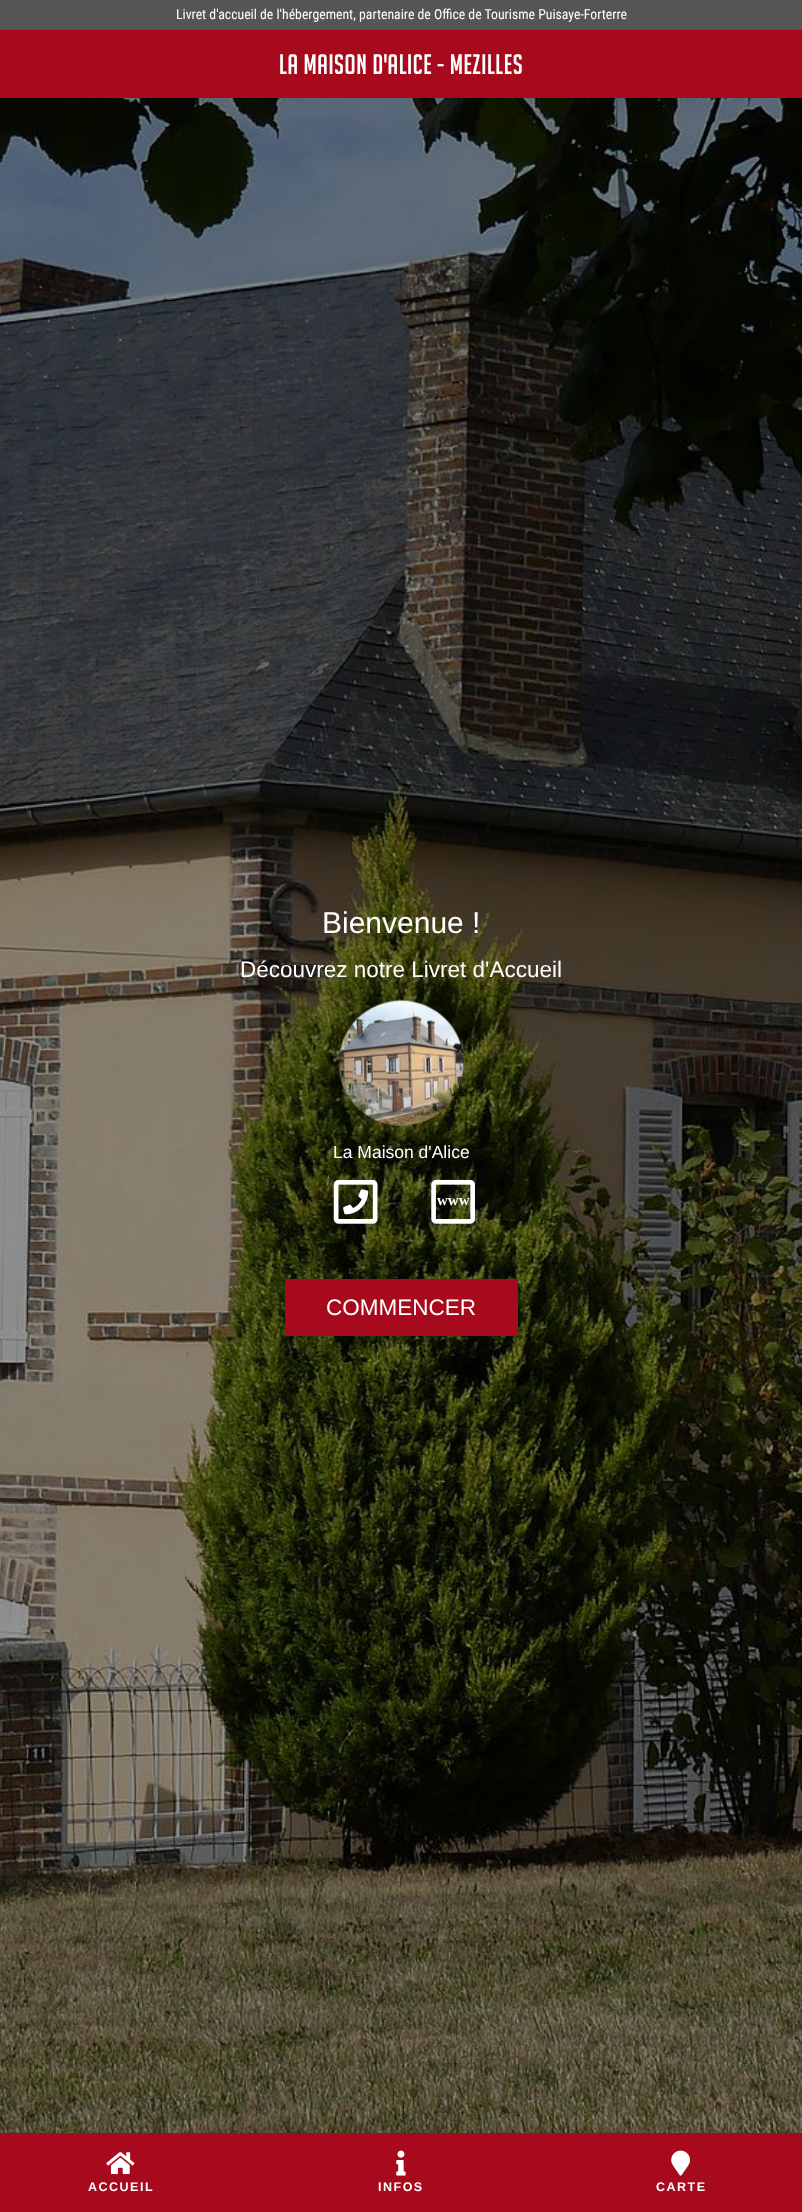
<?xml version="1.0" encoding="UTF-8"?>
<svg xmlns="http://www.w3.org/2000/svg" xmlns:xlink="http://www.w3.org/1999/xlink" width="802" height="2212">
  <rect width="100%" height="100%" fill="#ffffff" />
  <image x="0" y="98" width="802" height="2035" xlink:href="image1.png" />
  <rect width="802" height="30" fill="#555555" />
  <rect y="30" width="802" height="68" fill="#a60a1c" />
  <image x="338" y="1000" width="126" height="126" xlink:href="image2.png" />
  <image x="333" y="1179" width="45" height="45" xlink:href="image3.png" />
  <image x="431" y="1179" width="44" height="45" xlink:href="image4.png" />
  <rect x="285" y="1279" width="233" height="57" fill="#a60a1c" />
  <rect y="2133" width="802" height="79" fill="#a60a1c" />
  <image x="106" y="2152" width="29" height="23" xlink:href="image5.png" />
  <image x="396" y="2150" width="10" height="26" xlink:href="image6.png" />
  <image x="671" y="2150" width="19" height="26" xlink:href="image7.png" />
  <text x="176" y="19" style="font-family: Roboto Condensed; font-size: 13.75px; fill: #ffffff">Livret d'accueil de l'hébergement, partenaire de Office de Tourisme Puisaye-Forterre</text>
  <text x="279" y="74" style="font-family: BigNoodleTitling; font-size: 27.5px; letter-spacing: 0.6px; fill: #ffffff">LA MAISON D'ALICE - MEZILLES</text>
  <text x="322" y="933" style="font-family: Liberation Sans; font-size: 30px; fill: #ffffff">Bienvenue !</text>
  <text x="240" y="977" style="font-family: Liberation Sans; font-size: 22.5px; fill: #ffffff">Découvrez notre Livret d'Accueil</text>
  <text x="333" y="1158" style="font-family: Liberation Sans; font-size: 17.5px; fill: #ffffff">La Maison d'Alice</text>
  <text x="437" y="1205" style="font-family: Liberation Serif; font-size: 15px; font-weight: bold; fill: #ffffff">www</text>
  <text x="326" y="1315" style="font-family: Liberation Sans; font-size: 22.5px; fill: #ffffff">COMMENCER</text>
  <text x="88" y="2191" style="font-family: Liberation Sans; font-size: 12.5px; font-weight: bold; letter-spacing: 1.5px; fill: #ffffff">ACCUEIL</text>
  <text x="378" y="2191" style="font-family: Liberation Sans; font-size: 12.5px; font-weight: bold; letter-spacing: 1.5px; fill: #ffffff">INFOS</text>
  <text x="656" y="2191" style="font-family: Liberation Sans; font-size: 12.5px; font-weight: bold; letter-spacing: 1.5px; fill: #ffffff">CARTE</text>
</svg>
